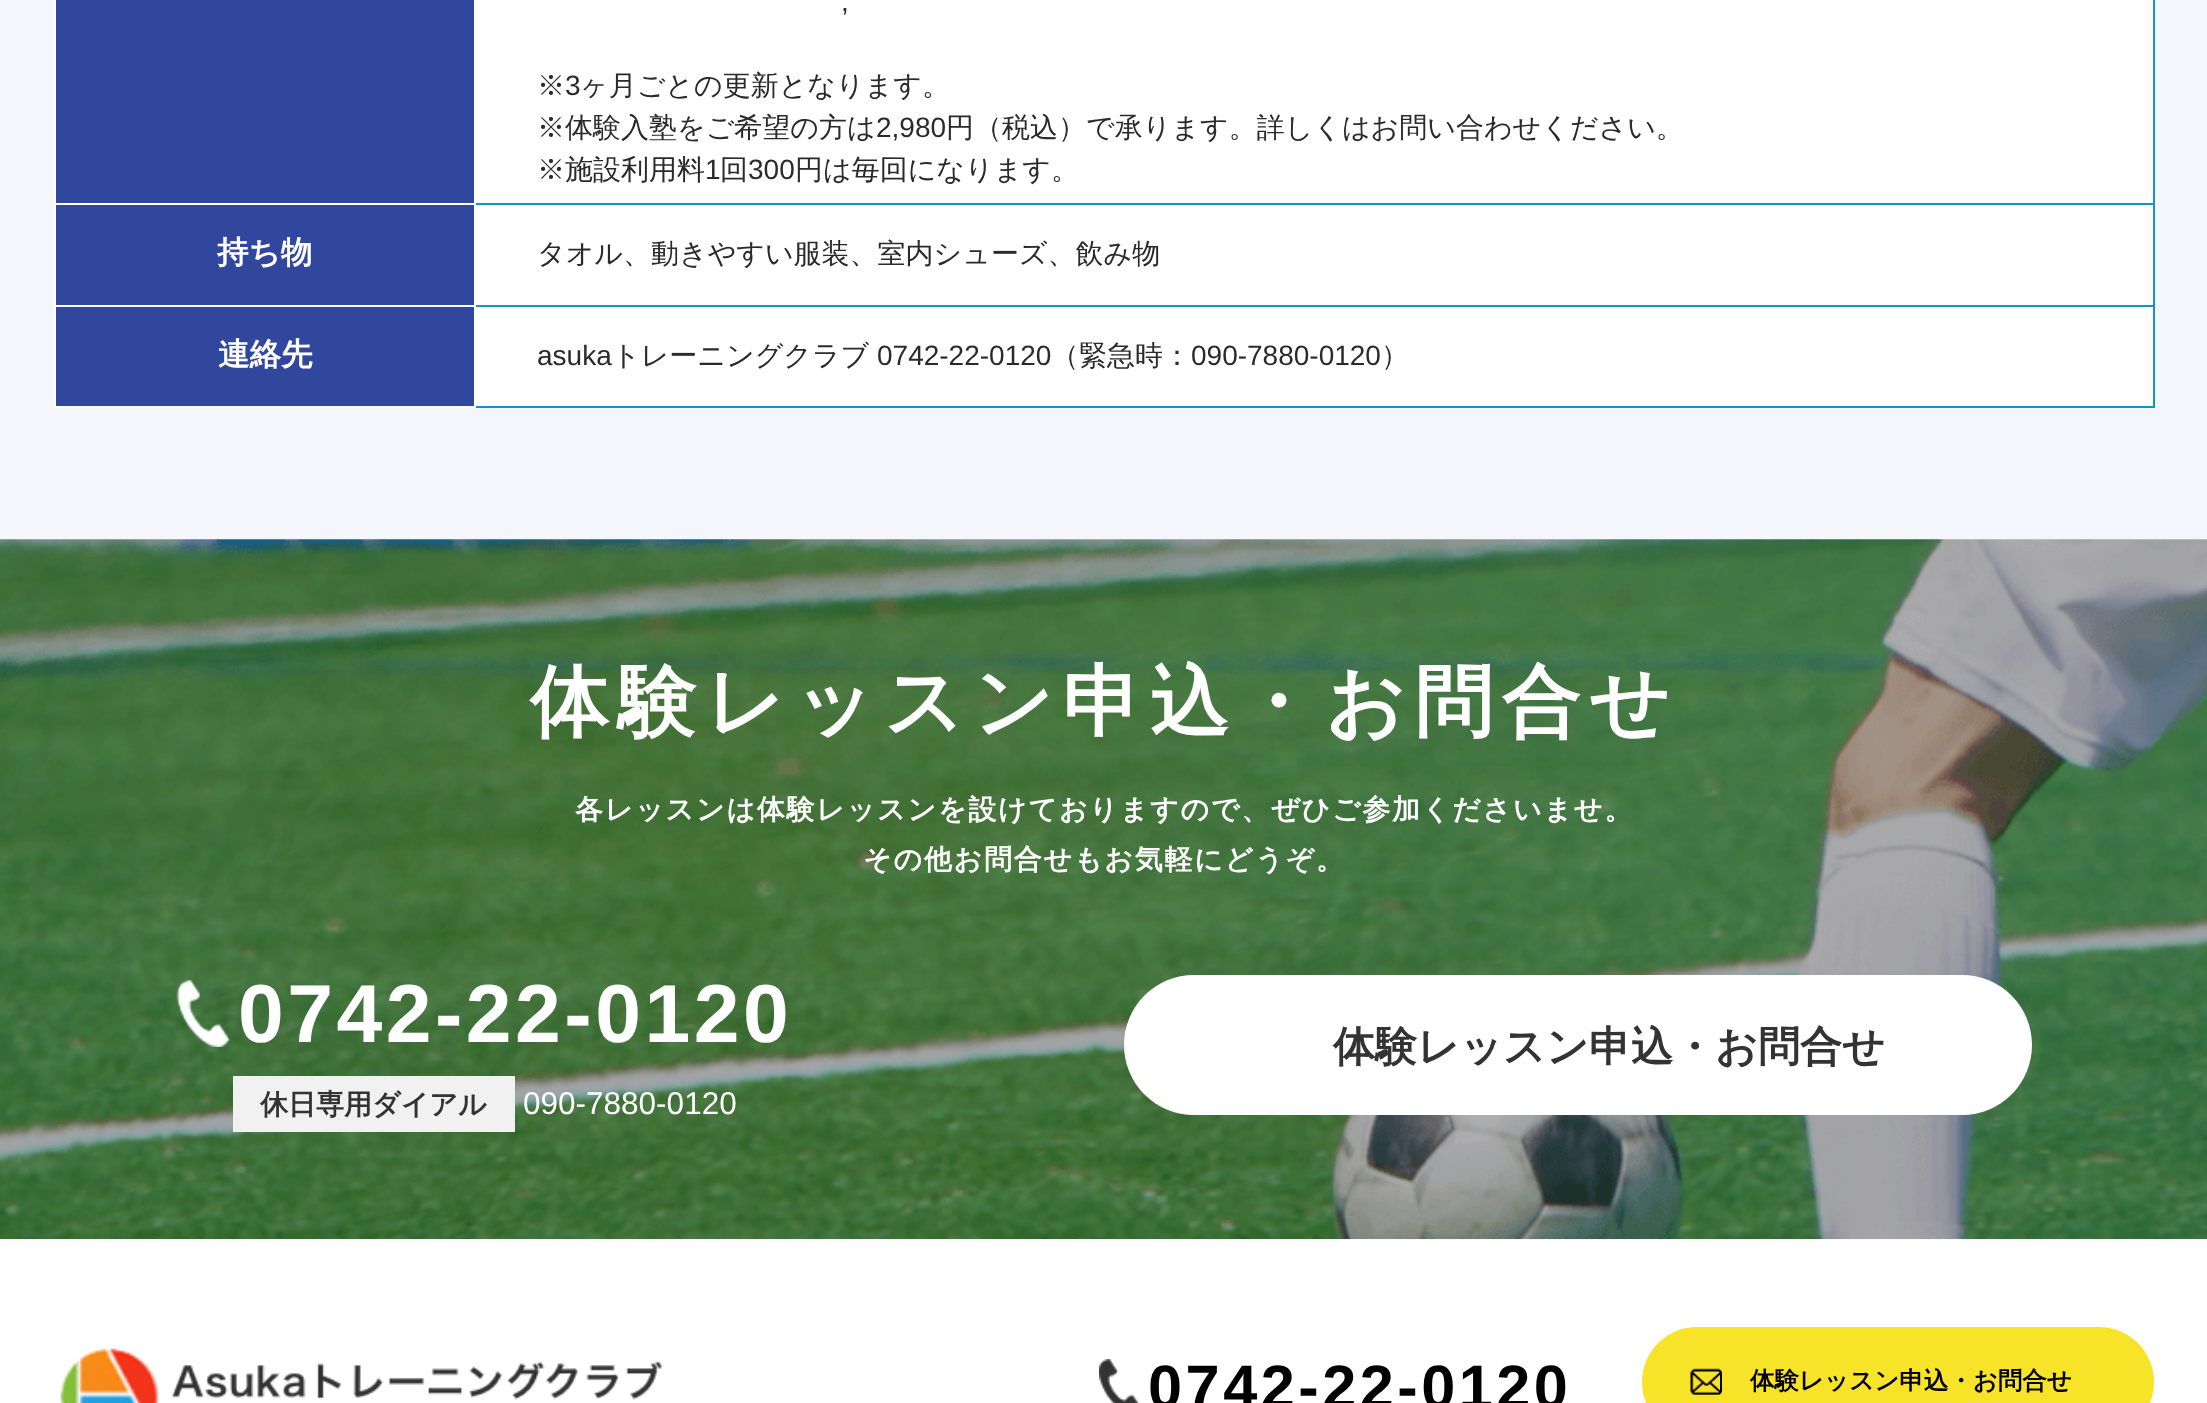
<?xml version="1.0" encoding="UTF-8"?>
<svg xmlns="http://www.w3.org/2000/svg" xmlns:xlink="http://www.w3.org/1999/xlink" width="2207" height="1403">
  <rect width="100%" height="100%" fill="#ffffff" />
  <rect width="2207" height="539" fill="#f4f6fc" />
  <rect x="56" width="418" height="203" fill="#31479d" />
  <rect x="54" y="203" width="422" height="2" fill="#ffffff" />
  <rect x="2153" width="2" height="408" fill="#1693c6" />
  <rect x="474" y="406" width="1680" height="2" fill="#1693c6" />
  <rect x="474" y="305" width="2" height="103" fill="#ffffff" />
  <rect x="474" y="305" width="1680" height="2" fill="#1693c6" />
  <rect x="474" y="203" width="2" height="103" fill="#ffffff" />
  <rect x="474" y="203" width="1680" height="2" fill="#1693c6" />
  <rect x="474" width="2" height="205" fill="#ffffff" />
  <rect x="476" width="1677" height="203" fill="#ffffff" />
  <rect x="56" y="205" width="418" height="100" fill="#31479d" />
  <rect x="54" y="406" width="422" height="2" fill="#ffffff" />
  <rect x="54" y="305" width="2" height="103" fill="#ffffff" />
  <rect x="54" y="305" width="422" height="2" fill="#ffffff" />
  <rect x="54" width="2" height="306" fill="#ffffff" />
  <rect x="476" y="205" width="1677" height="100" fill="#ffffff" />
  <rect x="56" y="307" width="418" height="99" fill="#31479d" />
  <rect x="476" y="307" width="1677" height="99" fill="#ffffff" />
  <image x="0" y="539" width="2207" height="701" xlink:href="image1.png" />
  <image x="176" y="980" width="54" height="67" xlink:href="image2.png" />
  <rect x="233" y="1076" width="282" height="56" fill="#f1f1f1" />
  <rect x="1124" y="975" width="908" height="140" rx="70" fill="#ffffff" />
  <image x="60" y="1347" width="602" height="56" xlink:href="image3.png" />
  <image x="1099" y="1359" width="41" height="44" xlink:href="image4.png" />
  <rect x="1642" y="1327" width="512" height="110" rx="55" fill="#f7e328" />
  <image x="1690" y="1368" width="32" height="27" xlink:href="image5.png" />
  <text x="841" y="11" style="font-family: Liberation Sans; font-size: 28px; fill: #2a2a2a">,</text>
  <text x="537" y="95" style="font-family: WenQuanYi Zen Hei; font-size: 28px; font-weight: 500; fill: #2a2a2a">※</text>
  <text x="565" y="95" style="font-family: Liberation Sans; font-size: 28px; fill: #2a2a2a">3</text>
  <text x="580" y="95" style="font-family: WenQuanYi Zen Hei; font-size: 28px; font-weight: 500; fill: #2a2a2a">ヶ月ごとの更新となります。</text>
  <text x="537" y="137" style="font-family: WenQuanYi Zen Hei; font-size: 28px; font-weight: 500; fill: #2a2a2a">※体験入塾をご希望の方は</text>
  <text x="876" y="137" style="font-family: Liberation Sans; font-size: 28px; fill: #2a2a2a">2,980</text>
  <text x="946" y="137" style="font-family: WenQuanYi Zen Hei; font-size: 28px; font-weight: 500; fill: #2a2a2a">円（税込）で承ります。詳しくはお問い合わせください。</text>
  <text x="537" y="179" style="font-family: WenQuanYi Zen Hei; font-size: 28px; font-weight: 500; fill: #2a2a2a">※施設利用料</text>
  <text x="705" y="179" style="font-family: Liberation Sans; font-size: 28px; fill: #2a2a2a">1</text>
  <text x="720" y="179" style="font-family: WenQuanYi Zen Hei; font-size: 28px; font-weight: 500; fill: #2a2a2a">回</text>
  <text x="748" y="179" style="font-family: Liberation Sans; font-size: 28px; fill: #2a2a2a">300</text>
  <text x="795" y="179" style="font-family: WenQuanYi Zen Hei; font-size: 28px; font-weight: 500; fill: #2a2a2a">円は毎回になります。</text>
  <text x="217" y="263" style="font-family: WenQuanYi Zen Hei; font-size: 31.5px; font-weight: bold; fill: #ffffff">持ち物</text>
  <text x="537" y="263" style="font-family: WenQuanYi Zen Hei; font-size: 28px; font-weight: 500; fill: #2a2a2a">タオル、動きやすい服装、室内シューズ、飲み物</text>
  <text x="218" y="365" style="font-family: WenQuanYi Zen Hei; font-size: 31.5px; font-weight: bold; fill: #ffffff">連絡先</text>
  <text x="537" y="365" style="font-family: Liberation Sans; font-size: 28px; fill: #2a2a2a">asuka</text>
  <text x="612" y="365" style="font-family: WenQuanYi Zen Hei; font-size: 28px; font-weight: 500; fill: #2a2a2a">トレーニングクラブ</text>
  <text x="877" y="365" style="font-family: Liberation Sans; font-size: 28px; fill: #2a2a2a">0742-22-0120</text>
  <text x="1051" y="365" style="font-family: WenQuanYi Zen Hei; font-size: 28px; font-weight: 500; fill: #2a2a2a">（緊急時：</text>
  <text x="1191" y="365" style="font-family: Liberation Sans; font-size: 28px; fill: #2a2a2a">090-7880-0120</text>
  <text x="1381" y="365" style="font-family: WenQuanYi Zen Hei; font-size: 28px; font-weight: 500; fill: #2a2a2a">）</text>
  <text x="530" y="729" style="font-family: WenQuanYi Zen Hei; font-size: 78.75px; font-weight: bold; letter-spacing: 8.75px; fill: #ffffff">体験レッスン申込・お問合せ</text>
  <text x="575" y="819" style="font-family: WenQuanYi Zen Hei; font-size: 28px; font-weight: bold; letter-spacing: 1.75px; fill: #ffffff">各レッスンは体験レッスンを設けておりますので、ぜひご参加くださいませ。</text>
  <text x="863" y="869" style="font-family: WenQuanYi Zen Hei; font-size: 28px; font-weight: bold; letter-spacing: 1.75px; fill: #ffffff">その他お問合せもお気軽にどうぞ。</text>
  <text x="238" y="1042" style="font-family: Liberation Sans; font-size: 82.25px; font-weight: bold; letter-spacing: 3.5px; fill: #ffffff">0742-22-0120</text>
  <text x="260" y="1114" style="font-family: WenQuanYi Zen Hei; font-size: 28px; font-weight: bold; fill: #333333">休日専用ダイアル</text>
  <text x="523" y="1114" style="font-family: Liberation Sans; font-size: 31.5px; fill: #ffffff">090-7880-0120</text>
  <text x="1333" y="1061" style="font-family: WenQuanYi Zen Hei; font-size: 42px; font-weight: bold; fill: #333333">体験レッスン申込・お問合せ</text>
  <text x="1148" y="1408" style="font-family: Liberation Sans; font-size: 61.25px; font-weight: bold; letter-spacing: 3.5px; fill: #000000">0742-22-0120</text>
  <text x="1750" y="1389" style="font-family: WenQuanYi Zen Hei; font-size: 24.5px; font-weight: bold; fill: #000000">体験レッスン申込・お問合せ</text>
</svg>
